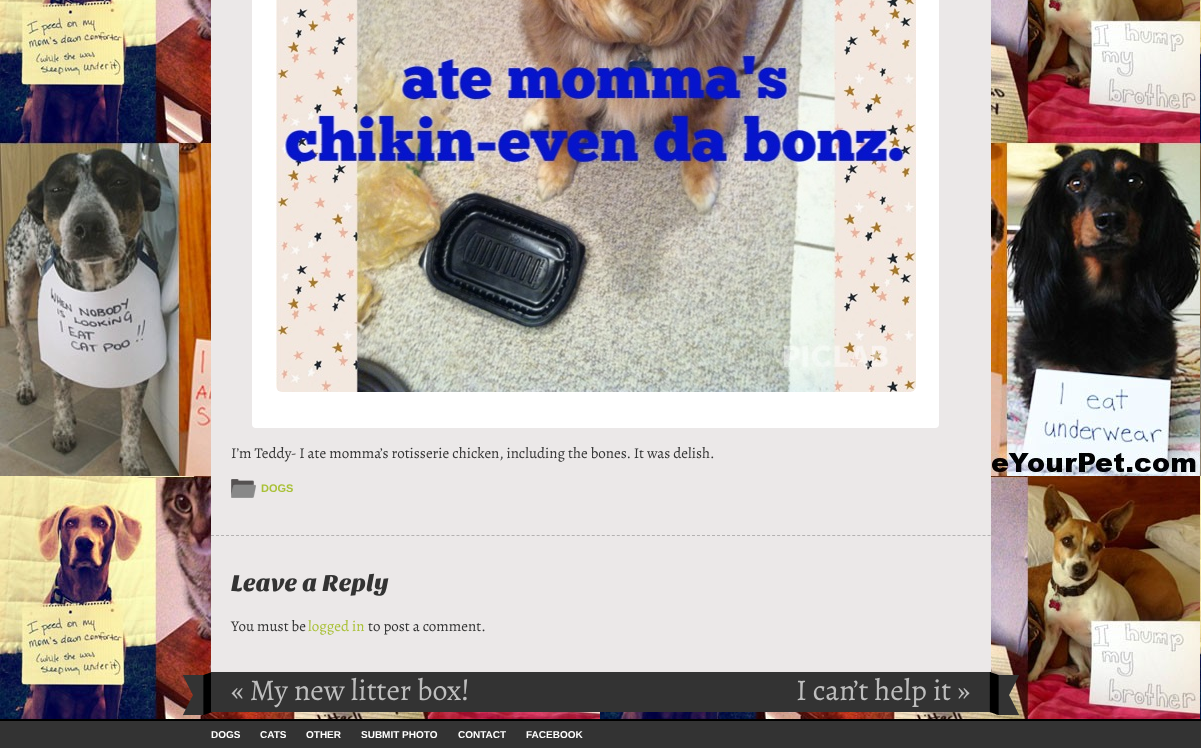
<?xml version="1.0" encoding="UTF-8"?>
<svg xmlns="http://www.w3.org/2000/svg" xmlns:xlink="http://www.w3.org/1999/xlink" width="1201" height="748">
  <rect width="100%" height="100%" fill="#ffffff" />
  <image x="0" y="0" width="1201" height="719" xlink:href="image1.png" />
  <rect x="211" width="780" height="672" fill="#ebe8e8" />
  <path d="M 211 535.5 h 780" fill="none" stroke="#b4b2b2" stroke-dasharray="3 2.01" />
  <rect x="252" y="-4" width="687" height="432" rx="4" fill="#ffffff" />
  <image x="276" y="0" width="640" height="392" xlink:href="image2.png" />
  <image x="231" y="479" width="25" height="19" xlink:href="image3.png" />
  <image x="183" y="672" width="29" height="43" xlink:href="image4.png" />
  <rect x="211" y="672" width="780" height="40" fill="#333333" />
  <image x="989" y="672" width="30" height="43" xlink:href="image5.png" />
  <rect y="721" width="1201" height="27" fill="#333333" />
  <rect y="719" width="1201" height="2" fill="#000000" />
  <text x="231" y="458" style="font-family: Alegreya; font-size: 15px; fill: #333333">I’m Teddy- I ate momma’s rotisserie chicken, including the bones. It was delish.</text>
  <text x="261" y="492" style="font-family: Liberation Sans; font-size: 11px; font-weight: bold; fill: #a9c137">DOGS</text>
  <text x="231" y="591" style="font-family: Sansita One; font-size: 24px; fill: #333333">Leave a Reply</text>
  <text x="231" y="631" style="font-family: Alegreya; font-size: 15px; fill: #333333">You must be</text>
  <text x="308" y="631" style="font-family: Alegreya; font-size: 15px; fill: #a9c137">logged in</text>
  <text x="368" y="631" style="font-family: Alegreya; font-size: 15px; fill: #333333">to post a comment.</text>
  <text x="231" y="700" style="font-family: Alegreya; font-size: 30px; fill: #bebebe">« My new litter box!</text>
  <text x="796" y="700" style="font-family: Alegreya; font-size: 30px; fill: #bebebe">I can’t help it »</text>
  <text x="211" y="738" style="font-family: Liberation Sans; font-size: 10px; font-weight: bold; fill: #ffffff">DOGS</text>
  <text x="260" y="738" style="font-family: Liberation Sans; font-size: 10px; font-weight: bold; fill: #ffffff">CATS</text>
  <text x="306" y="738" style="font-family: Liberation Sans; font-size: 10px; font-weight: bold; fill: #ffffff">OTHER</text>
  <text x="361" y="738" style="font-family: Liberation Sans; font-size: 10px; font-weight: bold; fill: #ffffff">SUBMIT PHOTO</text>
  <text x="458" y="738" style="font-family: Liberation Sans; font-size: 10px; font-weight: bold; fill: #ffffff">CONTACT</text>
  <text x="526" y="738" style="font-family: Liberation Sans; font-size: 10px; font-weight: bold; fill: #ffffff">FACEBOOK</text>
</svg>
